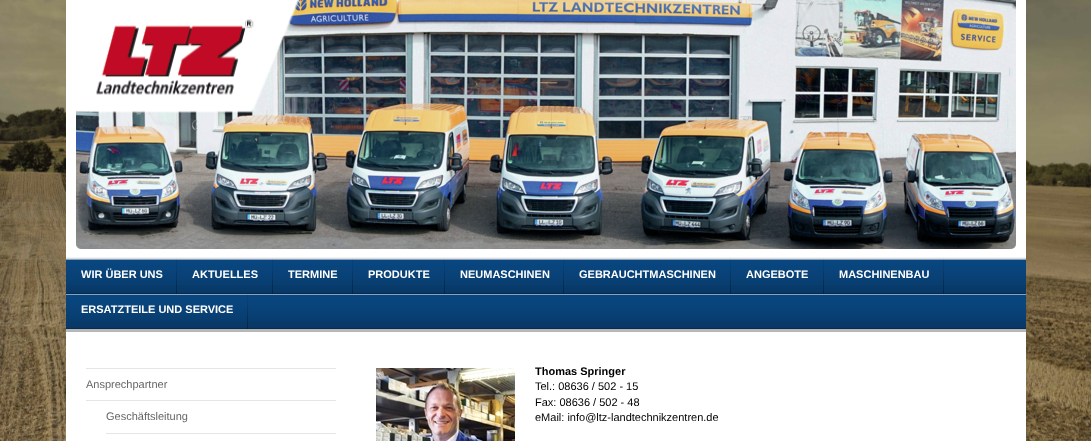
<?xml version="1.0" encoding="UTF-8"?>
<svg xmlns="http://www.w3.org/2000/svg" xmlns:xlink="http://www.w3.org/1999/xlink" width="1091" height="441">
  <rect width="100%" height="100%" fill="#ffffff" />
  <image x="0" y="0" width="1091" height="441" xlink:href="image1.png" />
  <image x="0" y="0" width="1091" height="441" xlink:href="image2.png" />
  <rect x="66" width="960" height="441" fill="#ffffff" />
  <image x="76" y="0" width="940" height="249" xlink:href="image3.png" />
  <image x="76" y="0" width="224" height="113" xlink:href="image4.png" />
  <image x="76" y="244" width="5" height="5" xlink:href="image5.png" />
  <image x="1011" y="244" width="5" height="5" xlink:href="image6.png" />
  <image x="66" y="257" width="960" height="2" xlink:href="image7.png" />
  <rect x="66" y="259" width="960" height="70" fill="#0a4780" />
  <image x="66" y="259" width="960" height="70" xlink:href="image8.png" />
  <image x="176" y="259" width="1" height="35" xlink:href="image9.png" />
  <image x="272" y="259" width="1" height="35" xlink:href="image9.png" />
  <image x="352" y="259" width="1" height="35" xlink:href="image9.png" />
  <image x="444" y="259" width="1" height="35" xlink:href="image9.png" />
  <image x="563" y="259" width="1" height="35" xlink:href="image9.png" />
  <image x="730" y="259" width="1" height="35" xlink:href="image9.png" />
  <image x="823" y="259" width="1" height="35" xlink:href="image9.png" />
  <image x="943" y="259" width="1" height="35" xlink:href="image9.png" />
  <image x="247" y="294" width="1" height="35" xlink:href="image9.png" />
  <rect x="66" y="329" width="960" height="3" fill="#b7b7b7" />
  <rect x="86" y="368" width="250" height="1" fill="#e5e5e5" />
  <rect x="86" y="400" width="250" height="1" fill="#e5e5e5" />
  <rect x="106" y="433" width="230" height="1" fill="#e5e5e5" />
  <image x="376" y="368" width="139" height="73" xlink:href="image10.png" />
  <text x="81" y="278" style="font-family: Liberation Sans; font-size: 11px; font-weight: bold; fill: #ffffff">WIR ÜBER UNS</text>
  <text x="192" y="278" style="font-family: Liberation Sans; font-size: 11px; font-weight: bold; fill: #ffffff">AKTUELLES</text>
  <text x="288" y="278" style="font-family: Liberation Sans; font-size: 11px; font-weight: bold; fill: #ffffff">TERMINE</text>
  <text x="368" y="278" style="font-family: Liberation Sans; font-size: 11px; font-weight: bold; fill: #ffffff">PRODUKTE</text>
  <text x="460" y="278" style="font-family: Liberation Sans; font-size: 11px; font-weight: bold; fill: #ffffff">NEUMASCHINEN</text>
  <text x="579" y="278" style="font-family: Liberation Sans; font-size: 11px; font-weight: bold; fill: #ffffff">GEBRAUCHTMASCHINEN</text>
  <text x="746" y="278" style="font-family: Liberation Sans; font-size: 11px; font-weight: bold; fill: #ffffff">ANGEBOTE</text>
  <text x="839" y="278" style="font-family: Liberation Sans; font-size: 11px; font-weight: bold; fill: #ffffff">MASCHINENBAU</text>
  <text x="81" y="313" style="font-family: Liberation Sans; font-size: 11px; font-weight: bold; fill: #ffffff">ERSATZTEILE UND SERVICE</text>
  <text x="86" y="388" style="font-family: Liberation Sans; font-size: 11px; fill: #666666">Ansprechpartner</text>
  <text x="106" y="420" style="font-family: Liberation Sans; font-size: 11px; fill: #666666">Geschäftsleitung</text>
  <text x="535" y="375" style="font-family: Liberation Sans; font-size: 11px; font-weight: bold; fill: #000000">Thomas Springer</text>
  <text x="535" y="390" style="font-family: Liberation Sans; font-size: 11px; fill: #000000">Tel.: 08636 / 502 - 15</text>
  <text x="535" y="406" style="font-family: Liberation Sans; font-size: 11px; fill: #000000">Fax: 08636 / 502 - 48</text>
  <text x="535" y="421" style="font-family: Liberation Sans; font-size: 11px; fill: #000000">eMail: info@ltz-landtechnikzentren.de</text>
</svg>
